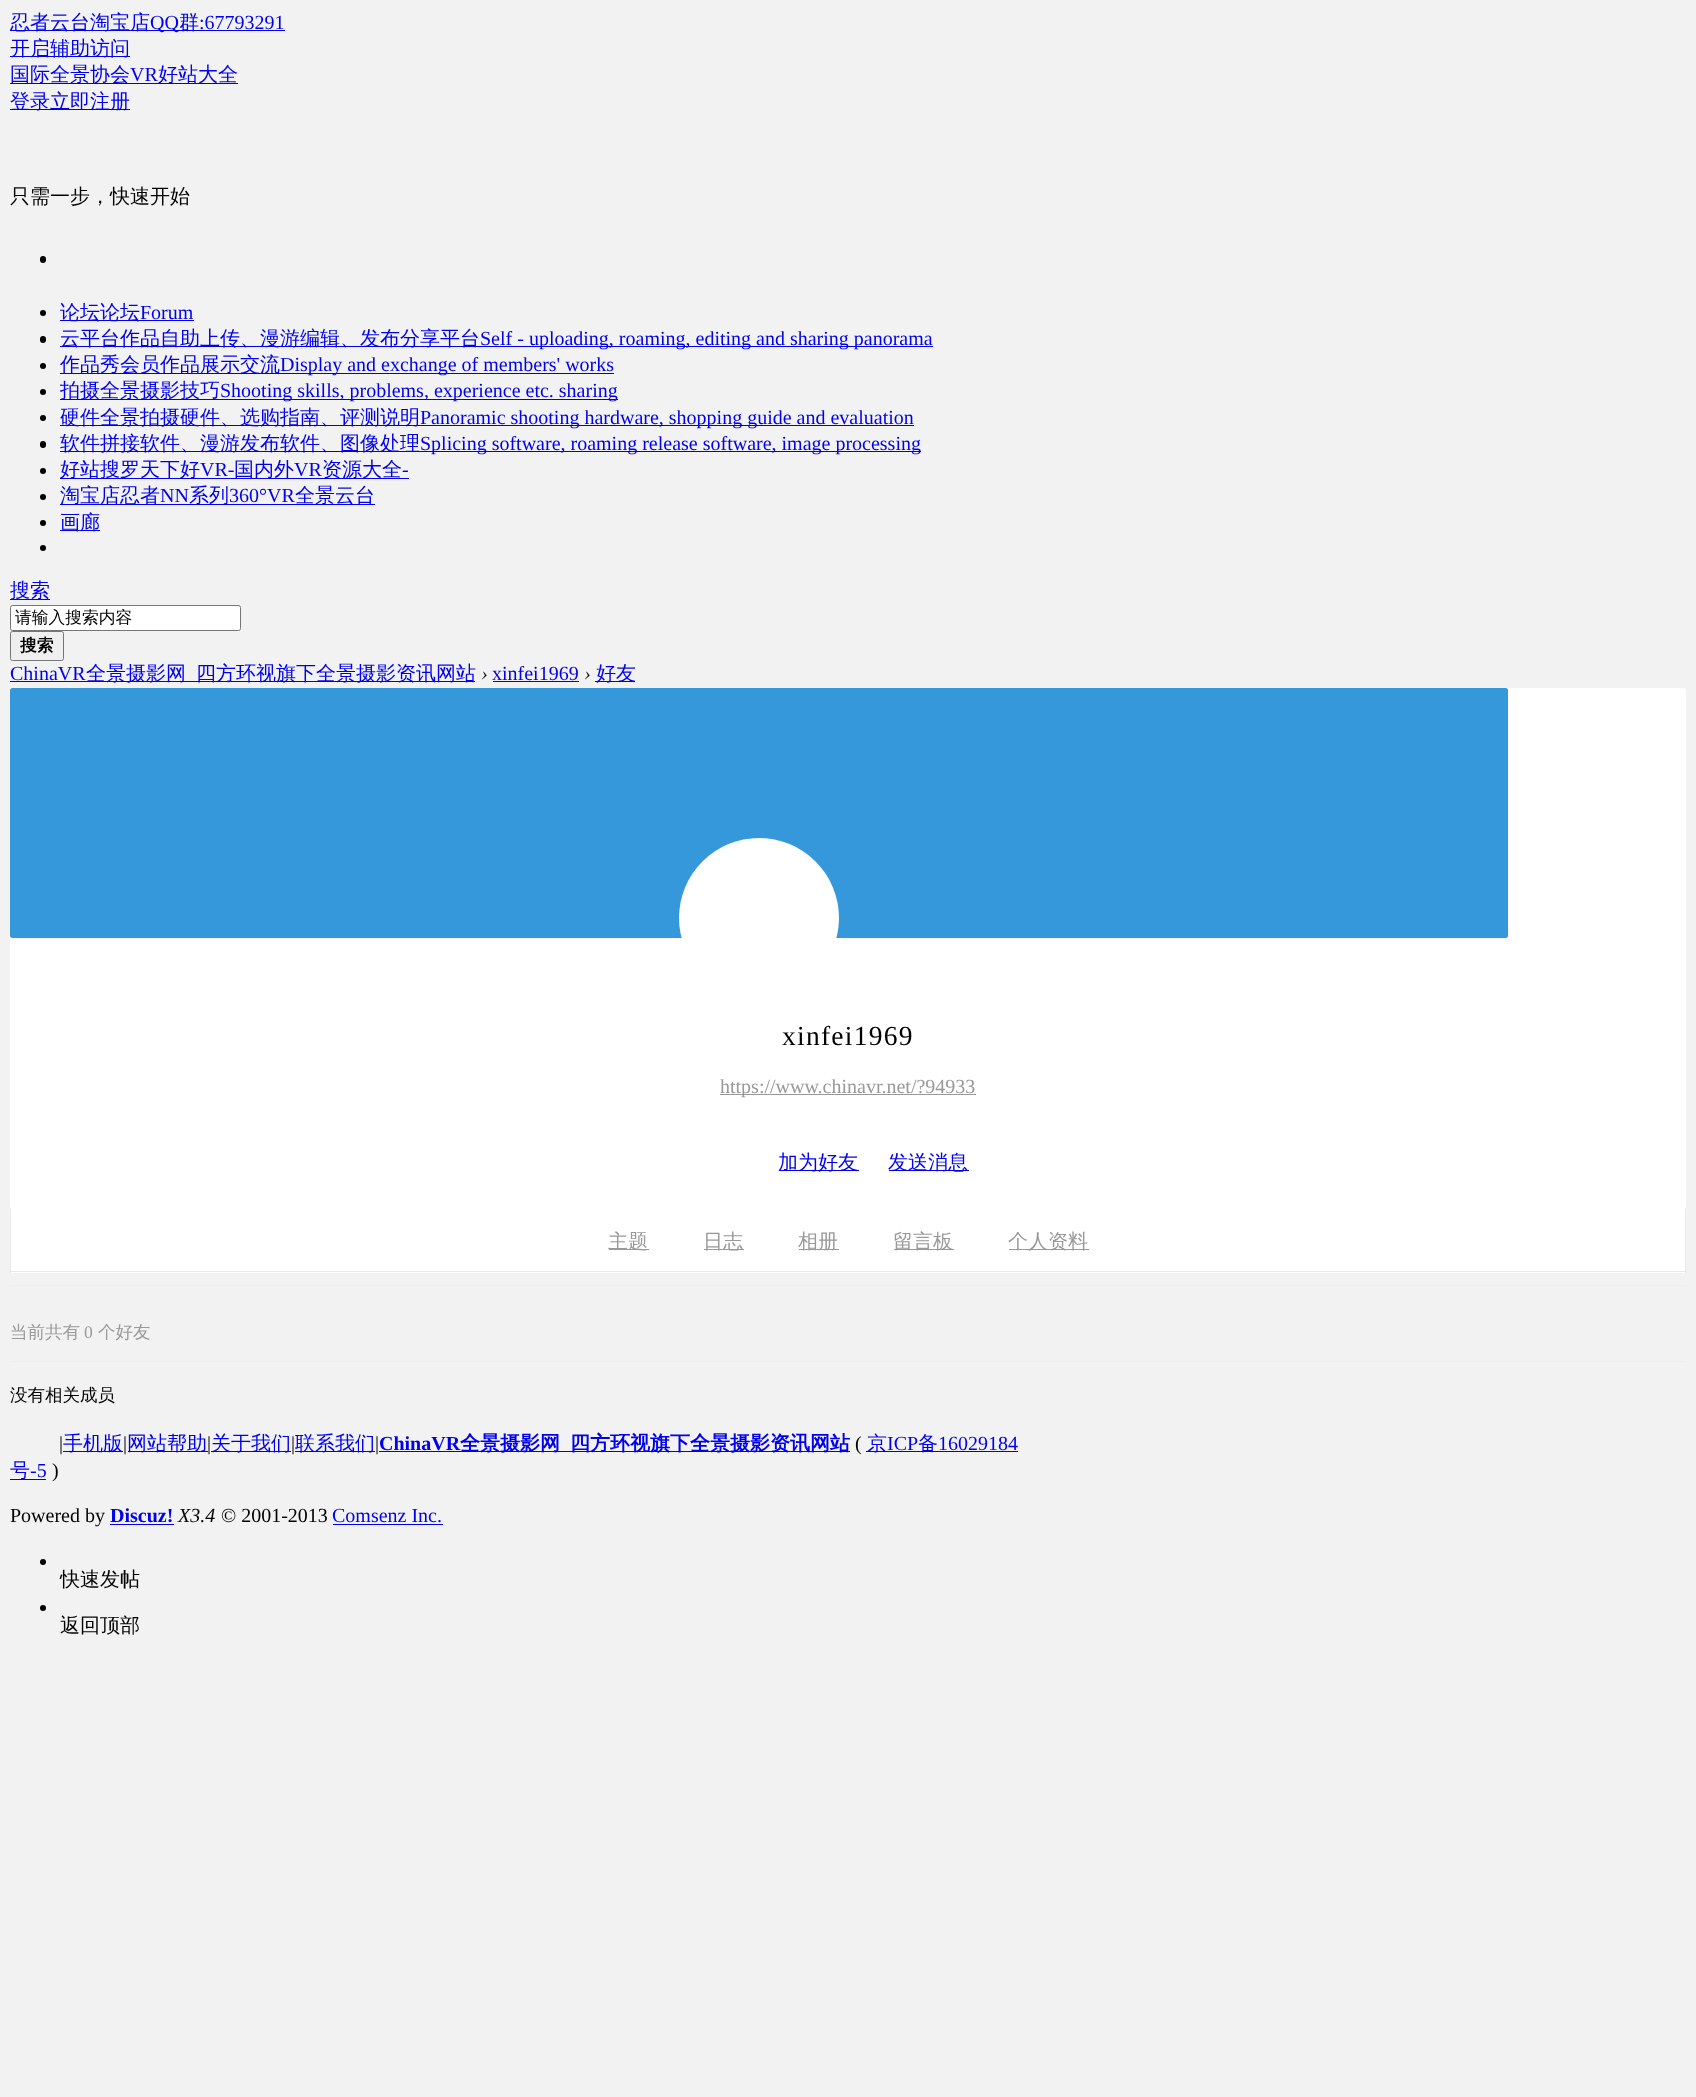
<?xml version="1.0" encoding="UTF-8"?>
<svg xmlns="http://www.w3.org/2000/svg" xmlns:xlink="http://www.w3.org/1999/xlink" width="1696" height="2097">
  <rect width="100%" height="100%" fill="#f2f2f2" />
  <rect x="10" y="30" width="275" height="1" fill="#0000ee" />
  <rect x="10" y="56" width="120" height="1" fill="#0000ee" />
  <rect x="10" y="83" width="228" height="1" fill="#0000ee" />
  <rect x="10" y="109" width="120" height="1" fill="#0000ee" />
  <rect x="40" y="256" width="6" height="7" rx="3" fill="#000000" />
  <circle cx="43" cy="313" r="3" fill="#000000" />
  <rect x="60" y="320" width="134" height="1" fill="#0000ee" />
  <rect x="40" y="336" width="6" height="7" rx="3" fill="#000000" />
  <rect x="60" y="346" width="873" height="1" fill="#0000ee" />
  <circle cx="43" cy="366" r="3" fill="#000000" />
  <rect x="60" y="373" width="554" height="1" fill="#0000ee" />
  <circle cx="43" cy="392" r="3" fill="#000000" />
  <rect x="60" y="399" width="558" height="1" fill="#0000ee" />
  <circle cx="43" cy="418" r="3" fill="#000000" />
  <rect x="60" y="425" width="854" height="1" fill="#0000ee" />
  <rect x="40" y="441" width="6" height="7" rx="3" fill="#000000" />
  <rect x="60" y="451" width="861" height="1" fill="#0000ee" />
  <circle cx="43" cy="471" r="3" fill="#000000" />
  <rect x="60" y="478" width="349" height="1" fill="#0000ee" />
  <circle cx="43" cy="497" r="3" fill="#000000" />
  <rect x="60" y="504" width="315" height="1" fill="#0000ee" />
  <circle cx="43" cy="523" r="3" fill="#000000" />
  <rect x="60" y="530" width="40" height="1" fill="#0000ee" />
  <circle cx="43" cy="548" r="3" fill="#000000" />
  <rect x="10" y="599" width="40" height="1" fill="#0000ee" />
  <rect x="10.5" y="605.5" width="230" height="25" rx="2" fill="#ffffff" stroke="#767676" />
  <rect x="10.5" y="631.5" width="53" height="29" rx="2" fill="#efefef" stroke="#767676" />
  <rect x="10" y="681" width="465" height="1" fill="#0000ee" />
  <rect x="493" y="681" width="86" height="1" fill="#0000ee" />
  <rect x="595" y="681" width="40" height="1" fill="#0000ee" />
  <rect x="10" y="688" width="1676" height="521" rx="2.5" fill="#ffffff" />
  <rect x="10" y="688" width="1498" height="250" rx="2.5" fill="#3498db" />
  <circle cx="759" cy="918" r="80" fill="#ffffff" />
  <rect x="720" y="1094" width="256" height="1" fill="#999999" />
  <rect x="779" y="1170" width="80" height="1" fill="#0000ee" />
  <rect x="889" y="1170" width="80" height="1" fill="#0000ee" />
  <rect x="11" y="1209" width="1674" height="64" fill="#ffffff" />
  <rect x="1685" y="1209" width="1" height="64" fill="#eaeaea" />
  <rect x="10" y="1271" width="1676" height="1" fill="#eaeaea" />
  <rect x="10" y="1209" width="1" height="64" fill="#eaeaea" />
  <rect x="609" y="1249" width="40" height="1" fill="#999999" />
  <rect x="704" y="1249" width="40" height="1" fill="#999999" />
  <rect x="799" y="1249" width="40" height="1" fill="#999999" />
  <rect x="894" y="1249" width="60" height="1" fill="#999999" />
  <rect x="1009" y="1249" width="80" height="1" fill="#999999" />
  <rect x="10" y="1285" width="1676" height="1" fill="#eeeeee" />
  <rect x="10" y="1361" width="1676" height="1" fill="#eeeeee" />
  <rect x="63" y="1451" width="60" height="1" fill="#0000ee" />
  <rect x="128" y="1451" width="80" height="1" fill="#0000ee" />
  <rect x="211" y="1451" width="80" height="1" fill="#0000ee" />
  <rect x="295" y="1451" width="80" height="1" fill="#0000ee" />
  <rect x="379" y="1451" width="471" height="1" fill="#0000ee" />
  <rect x="866" y="1451" width="152" height="1" fill="#0000ee" />
  <rect x="10" y="1479" width="36" height="1" fill="#0000ee" />
  <rect x="110" y="1524" width="64" height="1" fill="#0000ee" />
  <rect x="333" y="1524" width="110" height="1" fill="#0000ee" />
  <circle cx="43" cy="1562" r="3" fill="#000000" />
  <circle cx="43" cy="1608" r="3" fill="#000000" />
  <text x="10" y="29" style="font-family: WenQuanYi Zen Hei; font-size: 20px; font-weight: 500; fill: #0000ee">忍者云台淘宝店</text>
  <text x="150" y="29" style="font-family: Liberation Serif; font-size: 20px; fill: #0000ee">QQ</text>
  <text x="179" y="29" style="font-family: WenQuanYi Zen Hei; font-size: 20px; font-weight: 500; fill: #0000ee">群</text>
  <text x="199" y="29" style="font-family: Liberation Serif; font-size: 20px; fill: #0000ee">:67793291</text>
  <text x="10" y="55" style="font-family: WenQuanYi Zen Hei; font-size: 20px; font-weight: 500; fill: #0000ee">开启辅助访问</text>
  <text x="10" y="81" style="font-family: WenQuanYi Zen Hei; font-size: 20px; font-weight: 500; fill: #0000ee">国际全景协会</text>
  <text x="130" y="81" style="font-family: Liberation Serif; font-size: 20px; fill: #0000ee">VR</text>
  <text x="158" y="81" style="font-family: WenQuanYi Zen Hei; font-size: 20px; font-weight: 500; fill: #0000ee">好站大全</text>
  <text x="10" y="108" style="font-family: WenQuanYi Zen Hei; font-size: 20px; font-weight: 500; fill: #0000ee">登录立即注册</text>
  <text x="10" y="203" style="font-family: WenQuanYi Zen Hei; font-size: 20px; font-weight: 500; fill: #000000">只需一步，快速开始</text>
  <text x="60" y="319" style="font-family: WenQuanYi Zen Hei; font-size: 20px; font-weight: 500; fill: #0000ee">论坛论坛</text>
  <text x="140" y="319" style="font-family: Liberation Serif; font-size: 20px; fill: #0000ee">Forum</text>
  <text x="60" y="345" style="font-family: WenQuanYi Zen Hei; font-size: 20px; font-weight: 500; fill: #0000ee">云平台作品自助上传、漫游编辑、发布分享平台</text>
  <text x="480" y="345" style="font-family: Liberation Serif; font-size: 20px; fill: #0000ee">Self - uploading, roaming, editing and sharing panorama</text>
  <text x="60" y="371" style="font-family: WenQuanYi Zen Hei; font-size: 20px; font-weight: 500; fill: #0000ee">作品秀会员作品展示交流</text>
  <text x="280" y="371" style="font-family: Liberation Serif; font-size: 20px; fill: #0000ee">Display and exchange of members' works</text>
  <text x="60" y="397" style="font-family: WenQuanYi Zen Hei; font-size: 20px; font-weight: 500; fill: #0000ee">拍摄全景摄影技巧</text>
  <text x="220" y="397" style="font-family: Liberation Serif; font-size: 20px; fill: #0000ee">Shooting skills, problems, experience etc. sharing</text>
  <text x="60" y="424" style="font-family: WenQuanYi Zen Hei; font-size: 20px; font-weight: 500; fill: #0000ee">硬件全景拍摄硬件、选购指南、评测说明</text>
  <text x="420" y="424" style="font-family: Liberation Serif; font-size: 20px; fill: #0000ee">Panoramic shooting hardware, shopping guide and evaluation</text>
  <text x="60" y="450" style="font-family: WenQuanYi Zen Hei; font-size: 20px; font-weight: 500; fill: #0000ee">软件拼接软件、漫游发布软件、图像处理</text>
  <text x="420" y="450" style="font-family: Liberation Serif; font-size: 20px; fill: #0000ee">Splicing software, roaming release software, image processing</text>
  <text x="60" y="476" style="font-family: WenQuanYi Zen Hei; font-size: 20px; font-weight: 500; fill: #0000ee">好站搜罗天下好</text>
  <text x="200" y="476" style="font-family: Liberation Serif; font-size: 20px; fill: #0000ee">VR-</text>
  <text x="234" y="476" style="font-family: WenQuanYi Zen Hei; font-size: 20px; font-weight: 500; fill: #0000ee">国内外</text>
  <text x="294" y="476" style="font-family: Liberation Serif; font-size: 20px; fill: #0000ee">VR</text>
  <text x="322" y="476" style="font-family: WenQuanYi Zen Hei; font-size: 20px; font-weight: 500; fill: #0000ee">资源大全</text>
  <text x="402" y="476" style="font-family: Liberation Serif; font-size: 20px; fill: #0000ee">-</text>
  <text x="60" y="502" style="font-family: WenQuanYi Zen Hei; font-size: 20px; font-weight: 500; fill: #0000ee">淘宝店忍者</text>
  <text x="160" y="502" style="font-family: Liberation Serif; font-size: 20px; fill: #0000ee">NN</text>
  <text x="189" y="502" style="font-family: WenQuanYi Zen Hei; font-size: 20px; font-weight: 500; fill: #0000ee">系列</text>
  <text x="229" y="502" style="font-family: Liberation Serif; font-size: 20px; fill: #0000ee">360°VR</text>
  <text x="295" y="502" style="font-family: WenQuanYi Zen Hei; font-size: 20px; font-weight: 500; fill: #0000ee">全景云台</text>
  <text x="60" y="529" style="font-family: WenQuanYi Zen Hei; font-size: 20px; font-weight: 500; fill: #0000ee">画廊</text>
  <text x="10" y="597" style="font-family: WenQuanYi Zen Hei; font-size: 20px; font-weight: 500; fill: #0000ee">搜索</text>
  <text x="15" y="623" style="font-family: WenQuanYi Zen Hei; font-size: 16.75px; font-weight: 500; fill: #000000">请输入搜索内容</text>
  <text x="20" y="651" style="font-family: WenQuanYi Zen Hei; font-size: 16.75px; font-weight: bold; fill: #000000">搜索</text>
  <text x="10" y="680" style="font-family: Liberation Serif; font-size: 20px; fill: #0000ee">ChinaVR</text>
  <text x="86" y="680" style="font-family: WenQuanYi Zen Hei; font-size: 20px; font-weight: 500; fill: #0000ee">全景摄影网</text>
  <text x="196" y="680" style="font-family: WenQuanYi Zen Hei; font-size: 20px; font-weight: 500; fill: #0000ee">四方环视旗下全景摄影资讯网站</text>
  <text x="481" y="680" style="font-family: Liberation Serif; font-size: 20px; font-style: italic; fill: #000000">›</text>
  <text x="492" y="680" style="font-family: Liberation Serif; font-size: 20px; fill: #0000ee">xinfei1969</text>
  <text x="584" y="680" style="font-family: Liberation Serif; font-size: 20px; font-style: italic; fill: #000000">›</text>
  <text x="596" y="680" style="font-family: WenQuanYi Zen Hei; font-size: 20px; font-weight: 500; fill: #0000ee">好友</text>
  <text x="782" y="1045" style="font-family: Liberation Serif; font-size: 27.5px; letter-spacing: 1.25px; fill: #000000">xinfei1969</text>
  <text x="720" y="1093" style="font-family: Liberation Serif; font-size: 20px; fill: #999999">https://www.chinavr.net/?94933</text>
  <text x="778" y="1169" style="font-family: WenQuanYi Zen Hei; font-size: 20px; font-weight: 500; fill: #0000ee">加为好友</text>
  <text x="888" y="1169" style="font-family: WenQuanYi Zen Hei; font-size: 20px; font-weight: 500; fill: #0000ee">发送消息</text>
  <text x="608" y="1248" style="font-family: WenQuanYi Zen Hei; font-size: 20px; font-weight: 500; fill: #999999">主题</text>
  <text x="703" y="1248" style="font-family: WenQuanYi Zen Hei; font-size: 20px; font-weight: 500; fill: #999999">日志</text>
  <text x="798" y="1248" style="font-family: WenQuanYi Zen Hei; font-size: 20px; font-weight: 500; fill: #999999">相册</text>
  <text x="893" y="1248" style="font-family: WenQuanYi Zen Hei; font-size: 20px; font-weight: 500; fill: #999999">留言板</text>
  <text x="1008" y="1248" style="font-family: WenQuanYi Zen Hei; font-size: 20px; font-weight: 500; fill: #999999">个人资料</text>
  <text x="10" y="1338" style="font-family: WenQuanYi Zen Hei; font-size: 17.5px; font-weight: 500; fill: #999999">当前共有</text>
  <text x="84" y="1338" style="font-family: Liberation Serif; font-size: 17.5px; fill: #999999">0</text>
  <text x="98" y="1338" style="font-family: WenQuanYi Zen Hei; font-size: 17.5px; font-weight: 500; fill: #999999">个好友</text>
  <text x="10" y="1401" style="font-family: WenQuanYi Zen Hei; font-size: 17.5px; font-weight: 500; fill: #000000">没有相关成员</text>
  <text x="59" y="1450" style="font-family: Liberation Serif; font-size: 20px; fill: #000000">|</text>
  <text x="63" y="1450" style="font-family: WenQuanYi Zen Hei; font-size: 20px; font-weight: 500; fill: #0000ee">手机版</text>
  <text x="123" y="1450" style="font-family: Liberation Serif; font-size: 20px; fill: #000000">|</text>
  <text x="127" y="1450" style="font-family: WenQuanYi Zen Hei; font-size: 20px; font-weight: 500; fill: #0000ee">网站帮助</text>
  <text x="207" y="1450" style="font-family: Liberation Serif; font-size: 20px; fill: #000000">|</text>
  <text x="211" y="1450" style="font-family: WenQuanYi Zen Hei; font-size: 20px; font-weight: 500; fill: #0000ee">关于我们</text>
  <text x="291" y="1450" style="font-family: Liberation Serif; font-size: 20px; fill: #000000">|</text>
  <text x="295" y="1450" style="font-family: WenQuanYi Zen Hei; font-size: 20px; font-weight: 500; fill: #0000ee">联系我们</text>
  <text x="375" y="1450" style="font-family: Liberation Serif; font-size: 20px; fill: #000000">|</text>
  <text x="379" y="1450" style="font-family: Liberation Serif; font-size: 20px; font-weight: bold; fill: #0000ee">ChinaVR</text>
  <text x="460" y="1450" style="font-family: WenQuanYi Zen Hei; font-size: 20px; font-weight: bold; fill: #0000ee">全景摄影网</text>
  <text x="570" y="1450" style="font-family: WenQuanYi Zen Hei; font-size: 20px; font-weight: bold; fill: #0000ee">四方环视旗下全景摄影资讯网站</text>
  <text x="855" y="1450" style="font-family: Liberation Serif; font-size: 20px; fill: #000000">(</text>
  <text x="867" y="1450" style="font-family: WenQuanYi Zen Hei; font-size: 20px; font-weight: 500; fill: #0000ee">京</text>
  <text x="887" y="1450" style="font-family: Liberation Serif; font-size: 20px; fill: #0000ee">ICP</text>
  <text x="918" y="1450" style="font-family: WenQuanYi Zen Hei; font-size: 20px; font-weight: 500; fill: #0000ee">备</text>
  <text x="938" y="1450" style="font-family: Liberation Serif; font-size: 20px; fill: #0000ee">16029184</text>
  <text x="10" y="1477" style="font-family: WenQuanYi Zen Hei; font-size: 20px; font-weight: 500; fill: #0000ee">号</text>
  <text x="30" y="1477" style="font-family: Liberation Serif; font-size: 20px; fill: #0000ee">-5</text>
  <text x="52" y="1477" style="font-family: Liberation Serif; font-size: 20px; fill: #000000">)</text>
  <text x="10" y="1522" style="font-family: Liberation Serif; font-size: 20px; fill: #000000">Powered by</text>
  <text x="110" y="1522" style="font-family: Liberation Serif; font-size: 20px; font-weight: bold; fill: #0000ee">Discuz!</text>
  <text x="178" y="1522" style="font-family: Liberation Serif; font-size: 20px; font-style: italic; fill: #000000">X3.4</text>
  <text x="221" y="1522" style="font-family: Liberation Serif; font-size: 20px; fill: #000000">© 2001-2013</text>
  <text x="332" y="1522" style="font-family: Liberation Serif; font-size: 20px; fill: #0000ee">Comsenz Inc.</text>
  <text x="60" y="1586" style="font-family: WenQuanYi Zen Hei; font-size: 20px; font-weight: 500; fill: #000000">快速发帖</text>
  <text x="60" y="1632" style="font-family: WenQuanYi Zen Hei; font-size: 20px; font-weight: 500; fill: #000000">返回顶部</text>
</svg>
